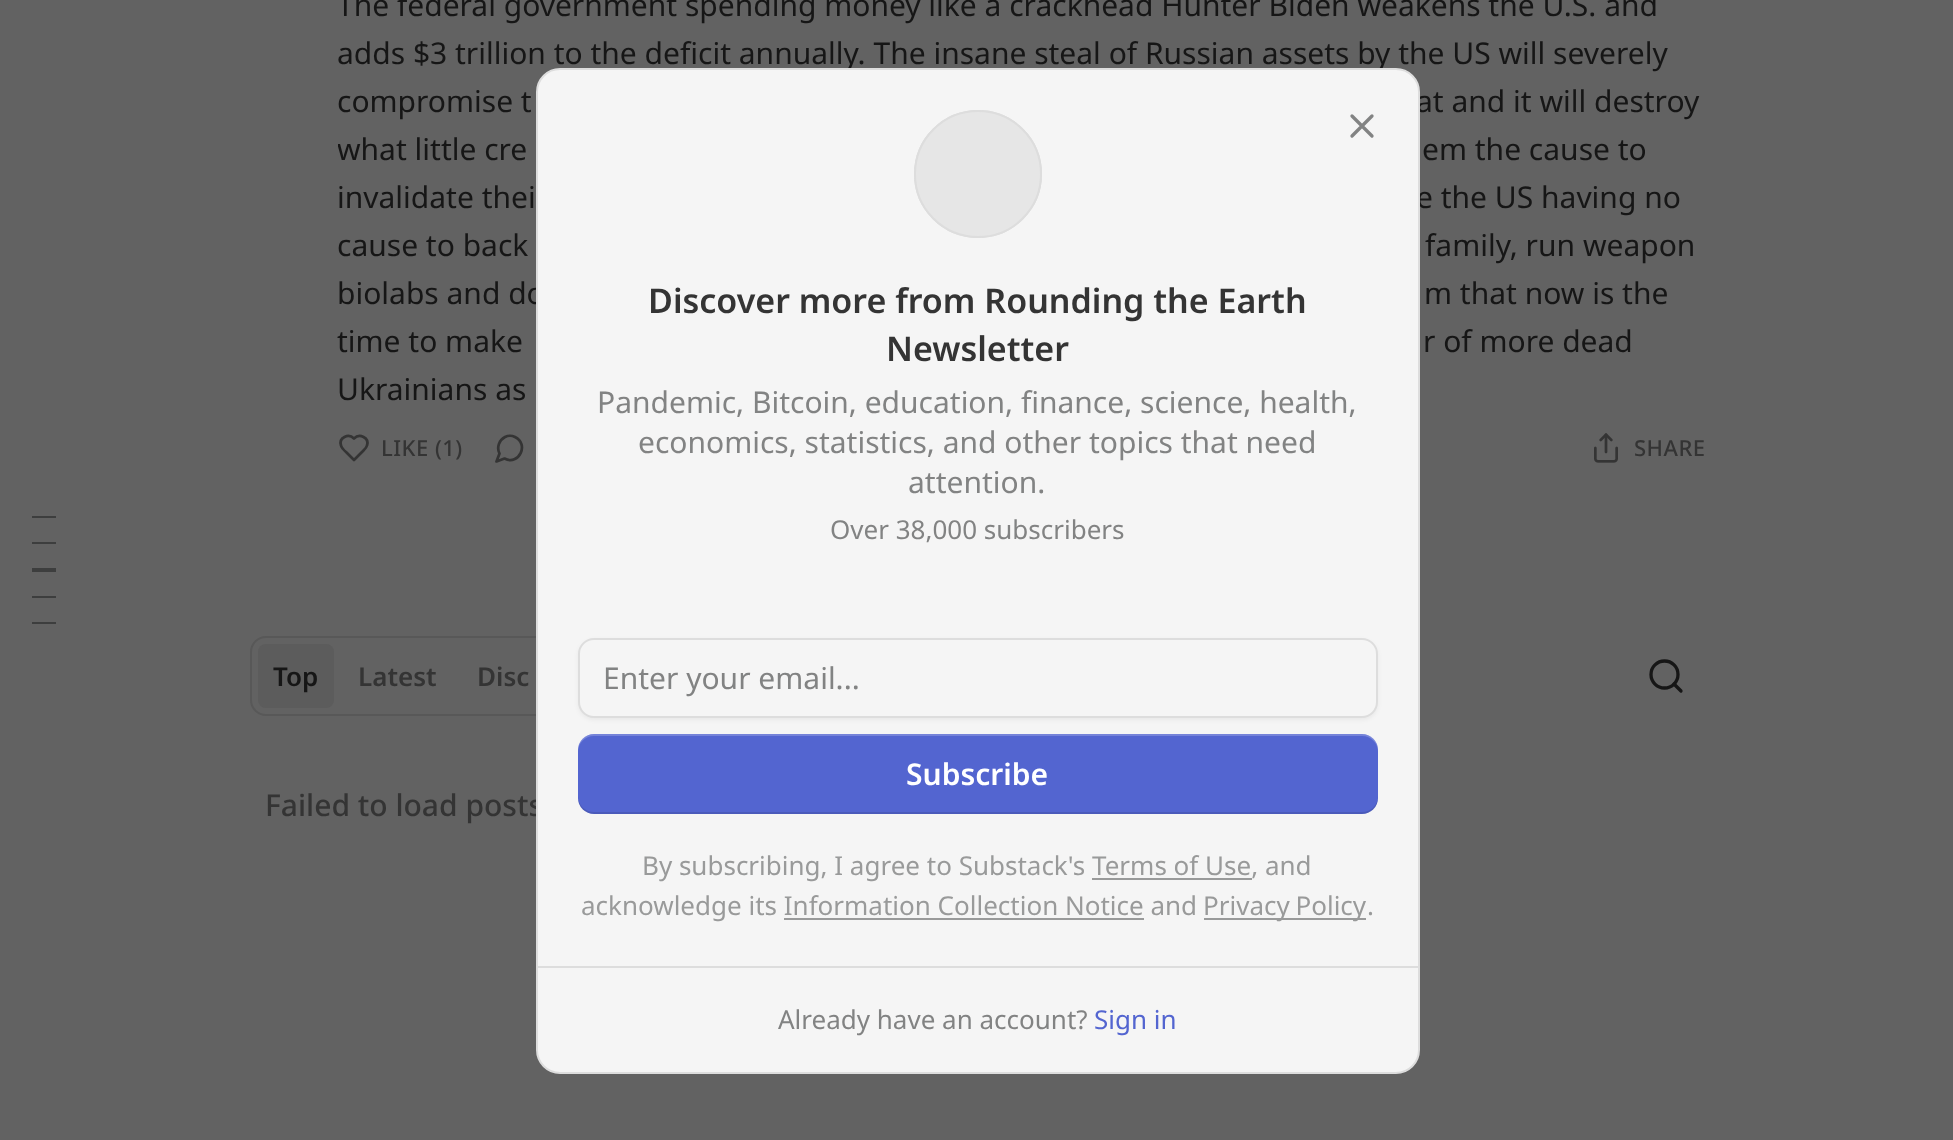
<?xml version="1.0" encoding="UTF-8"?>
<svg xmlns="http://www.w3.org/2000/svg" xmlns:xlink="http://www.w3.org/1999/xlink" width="1953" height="1140">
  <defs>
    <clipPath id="clip1"><rect x="338" width="1368" height="412" /></clipPath>
  </defs>
  <rect width="100%" height="100%" fill="#626262" />
  <path d="M 363.5 450.5 c 1.5 -1.5 3 -3 3.5 -5 c 2.5 -8 -7.5 -12.5 -13 -7 c -5.5 -5.5 -15.5 -1 -13 7 c 1 3.5 4.5 6 7 8.5 l 6 6 z" fill="none" stroke="#343434" stroke-width="2.7" stroke-linecap="round" stroke-linejoin="round" />
  <path d="M 504.5 458.5 c 14.5 7.5 25 -14.5 10.5 -21.5 c -3 -1.5 -7 -1.5 -10 0 c -6 3 -8.5 10.5 -5.5 16.5 l -3 8 z" fill="none" stroke="#343434" stroke-width="2.7" stroke-linecap="round" stroke-linejoin="round" />
  <image x="1594" y="433" width="24" height="30" xlink:href="image1.png" />
  <rect x="251" y="637" width="396" height="78" rx="15" fill="none" stroke="#585858" stroke-width="2" />
  <rect x="258" y="644" width="76" height="64" rx="8" fill="#5c5c5c" />
  <circle cx="1664.5" cy="674.5" r="13.5" fill="none" stroke="#161616" stroke-width="3.3" />
  <path d="M 1681 691 l -7 -7" fill="none" stroke="#161616" stroke-width="3.3" stroke-linecap="round" stroke-linejoin="round" />
  <rect x="32" y="516" width="24" height="2" fill="#3d3e3e" />
  <rect x="32" y="542" width="24" height="2" fill="#3d3e3e" />
  <rect x="32" y="568" width="24" height="4" fill="#3d3e3e" />
  <rect x="32" y="596" width="24" height="2" fill="#3d3e3e" />
  <rect x="32" y="622" width="24" height="2" fill="#3d3e3e" />
  <text x="337" y="16" style="font-family: Noto Sans; font-size: 30px; fill: #161616">The federal government spending money like a crackhead Hunter Biden weakens the U.S. and</text>
  <text x="337" y="64" style="font-family: Noto Sans; font-size: 30px; fill: #161616">adds $3 trillion to the deficit annually. The insane steal of Russian assets by the US will severely</text>
  <text x="337" y="112" style="font-family: Noto Sans; font-size: 30px; fill: #161616">compromise t</text>
  <text x="1416" y="112" style="font-family: Noto Sans; font-size: 30px; fill: #161616">at and it will destroy</text>
  <g clip-path="url(#clip1)">
    <text x="337" y="160" style="font-family: Noto Sans; font-size: 30px; fill: #161616">what little cre</text>
  </g>
  <text x="1422" y="160" style="font-family: Noto Sans; font-size: 30px; fill: #161616">em the cause to</text>
  <text x="337" y="208" style="font-family: Noto Sans; font-size: 30px; fill: #161616">invalidate thei</text>
  <text x="1416" y="208" style="font-family: Noto Sans; font-size: 30px; fill: #161616">e the US having no</text>
  <text x="337" y="256" style="font-family: Noto Sans; font-size: 30px; fill: #161616">cause to back</text>
  <text x="1425" y="256" style="font-family: Noto Sans; font-size: 30px; fill: #161616">family, run weapon</text>
  <text x="337" y="304" style="font-family: Noto Sans; font-size: 30px; fill: #161616">biolabs and do</text>
  <text x="1424" y="304" style="font-family: Noto Sans; font-size: 30px; fill: #161616">m that now is the</text>
  <text x="337" y="352" style="font-family: Noto Sans; font-size: 30px; fill: #161616">time to make</text>
  <text x="1423" y="352" style="font-family: Noto Sans; font-size: 30px; fill: #161616">r of more dead</text>
  <text x="337" y="400" style="font-family: Noto Sans; font-size: 30px; fill: #161616">Ukrainians as</text>
  <text x="381" y="456" style="font-family: Noto Sans; font-size: 22px; font-weight: 500; letter-spacing: 0.5px; fill: #343434">LIKE (1)</text>
  <text x="1634" y="456" style="font-family: Noto Sans; font-size: 22px; font-weight: 500; letter-spacing: 0.5px; fill: #343434">SHARE</text>
  <text x="477" y="686" style="font-family: Noto Sans; font-size: 26px; font-weight: 600; fill: #343434">Disc</text>
  <text x="273" y="686" style="font-family: Noto Sans; font-size: 26px; font-weight: 600; fill: #161616">Top</text>
  <text x="358" y="686" style="font-family: Noto Sans; font-size: 26px; font-weight: 600; fill: #343434">Latest</text>
  <text x="265" y="816" style="font-family: Noto Sans; font-size: 30px; font-weight: 500; fill: #343434">Failed to load posts</text>
  <rect x="537" y="69" width="882" height="1004" rx="23" fill="#f5f5f5" stroke="#dddddd" stroke-width="2" />
  <circle cx="978" cy="174" r="63" fill="none" stroke="#dddddd" stroke-width="2" />
  <circle cx="978" cy="174" r="63" fill="#e6e6e6" stroke="#dddddd" stroke-width="2" />
  <path d="M 1372 116 l -20 20 m 0 -20 l 20 20" fill="none" stroke="#828383" stroke-width="3.3" stroke-linecap="round" stroke-linejoin="round" />
  <text x="648" y="313" style="font-family: Noto Sans; font-size: 34px; font-weight: 600; fill: #343434">Discover more from Rounding the Earth</text>
  <text x="886" y="361" style="font-family: Noto Sans; font-size: 34px; font-weight: 600; fill: #343434">Newsletter</text>
  <text x="597" y="413" style="font-family: Noto Sans; font-size: 30px; fill: #828383">Pandemic, Bitcoin, education, finance, science, health,</text>
  <text x="638" y="453" style="font-family: Noto Sans; font-size: 30px; fill: #828383">economics, statistics, and other topics that need</text>
  <text x="908" y="493" style="font-family: Noto Sans; font-size: 30px; fill: #828383">attention.</text>
  <text x="830" y="539" style="font-family: Noto Sans; font-size: 26px; fill: #828383">Over 38,000 subscribers</text>
  <rect x="578" y="640" width="800" height="80" rx="16" fill="#000000" fill-opacity="0.05" filter="blur(2px)" />
  <rect x="579" y="639" width="798" height="78" rx="15" fill="#f5f5f5" stroke="#dddddd" stroke-width="2" />
  <text x="603" y="689" style="font-family: Noto Sans; font-size: 30px; fill: #828383">Enter your email...</text>
  <rect x="578" y="734" width="800" height="80" rx="16" fill="#5365d0" />
  <path d="M 578 796 v 2 c 0 9 7 16 16 16 h 768 c 9 0 16 -7 16 -16 v -2 c 0 9 -7 16 -16 16 h -768 c -9 0 -16 -7 -16 -16 z" fill="#000000" fill-opacity="0.1" />
  <path d="M 594 736 h 768 c 9 0 16 7 16 16 v -2 c 0 -9 -7 -16 -16 -16 h -768 c -9 0 -16 7 -16 16 v 2 c 0 -9 7 -16 16 -16 z" fill="#ffffff" fill-opacity="0.2" />
  <text x="906" y="785" style="font-family: Noto Sans; font-size: 30px; font-weight: 600; fill: #ffffff">Subscribe</text>
  <text x="642" y="875" style="font-family: Noto Sans; font-size: 26px; fill: #999a9a">By subscribing, I agree to Substack's Terms of Use, and</text>
  <rect x="1092" y="878" width="160" height="2" fill="#999a9a" />
  <text x="581" y="915" style="font-family: Noto Sans; font-size: 26px; fill: #999a9a">acknowledge its Information Collection Notice and</text>
  <rect x="1204" y="918" width="162" height="2" fill="#999a9a" />
  <text x="1203" y="915" word-spacing="-1" style="font-family: Noto Sans; font-size: 26px; fill: #999a9a">Privacy Policy</text>
  <text x="1367" y="915" style="font-family: Noto Sans; font-size: 26px; fill: #999a9a">.</text>
  <rect x="784" y="918" width="360" height="2" fill="#999a9a" />
  <rect x="538" y="966" width="880" height="2" fill="#dddddd" />
  <text x="778" y="1029" style="font-family: Noto Sans; font-size: 26px; fill: #828383">Already have an account?</text>
  <text x="1094" y="1029" style="font-family: Noto Sans; font-size: 26px; fill: #5365d0">Sign in</text>
</svg>
